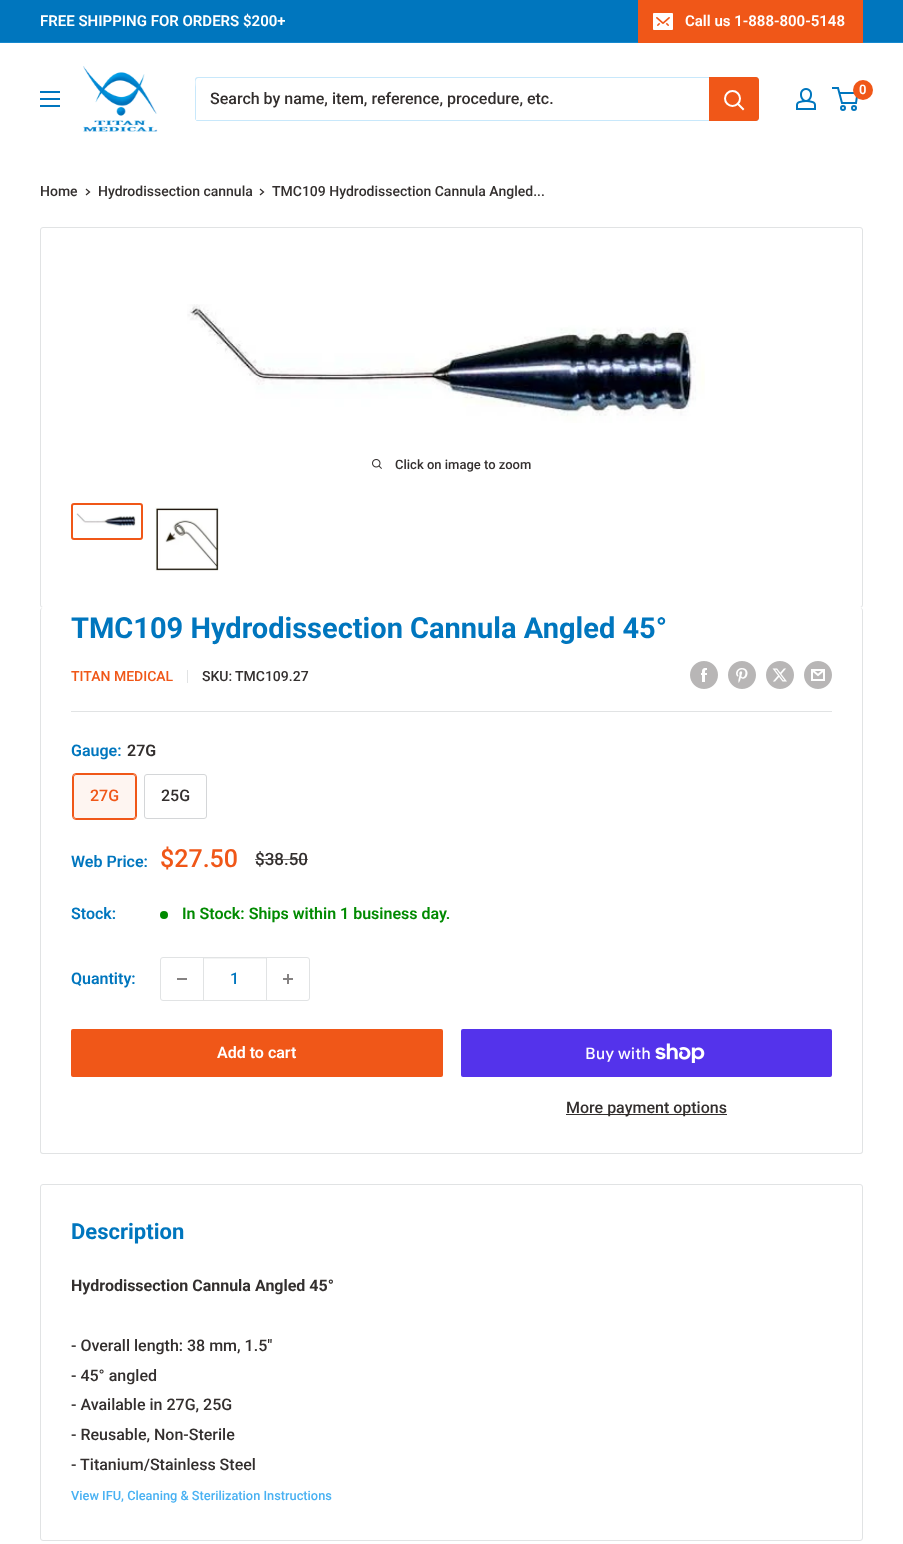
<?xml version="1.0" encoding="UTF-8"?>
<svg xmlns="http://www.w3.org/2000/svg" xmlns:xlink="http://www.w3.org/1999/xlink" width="903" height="1544">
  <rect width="100%" height="100%" fill="#ffffff" />
  <rect width="903" height="42" fill="#0076be" />
  <rect y="42" width="903" height="1" fill="#1688ce" />
  <rect x="638" width="225" height="43" fill="#f05718" />
  <image x="653" y="13" width="20" height="17" xlink:href="image1.png" />
  <image x="83" y="66" width="75" height="66" xlink:href="image2.png" />
  <image x="796" y="88" width="20" height="22" xlink:href="image3.png" />
  <circle cx="843" cy="108" r="2" fill="none" stroke="#0076be" stroke-width="2" />
  <circle cx="854" cy="108" r="2" fill="none" stroke="#0076be" stroke-width="2" />
  <path d="M 839.5 93 h 18 l -1.5 10 h -14 l -4 -15 h -6" fill="none" stroke="#0076be" stroke-width="2" />
  <circle cx="863" cy="90" r="10" fill="#f05718" />
  <image x="40" y="91" width="20" height="16" xlink:href="image4.png" />
  <path d="M 196 120 c 0 1 1 1 2 1 h 558 c 2 0 3 -1 3 -3 v -38 c 0 -1 0 -2 -1 -2 v 33 c 0 2 2 9 -3 9 z" fill="#c8e8fb" />
  <path d="M 199 78 h 559 c 0 -1 -1 -1 -2 -1 h -558 c -2 0 -3 1 -3 3 v 38 c 0 1 0 2 1 2 v -33 c 0 -2 -2 -9 3 -9 z" fill="#c8e8fb" />
  <path d="M 709 77 h 47 c 1.5 0 3 1.5 3 3 v 38 c 0 1.5 -1.5 3 -3 3 h -47 z" fill="#f05718" />
  <path d="M 743 109 l -5 -5" fill="none" stroke="#ffffff" stroke-width="2" stroke-linecap="square" />
  <circle cx="732.5" cy="98.5" r="7.5" fill="none" stroke="#ffffff" stroke-width="2" />
  <path d="M 86.5 189.5 l 3 2.5 l -3 2.5" fill="none" stroke="#332f2e" stroke-width="1.3" stroke-linecap="square" />
  <path d="M 260.5 189.5 l 3 2.5 l -3 2.5" fill="none" stroke="#332f2e" stroke-width="1.3" stroke-linecap="square" />
  <rect x="40.5" y="227.5" width="822" height="380" rx="2.5" fill="none" stroke="#e1e3e4" />
  <image x="187" y="304" width="518" height="119" xlink:href="image5.png" />
  <image x="372" y="459" width="10" height="10" xlink:href="image6.png" />
  <rect x="72" y="504" width="70" height="35" rx="2" fill="none" stroke="#f05718" stroke-width="2" />
  <image x="76" y="513" width="60" height="14" xlink:href="image7.png" />
  <image x="155" y="507" width="64" height="64" xlink:href="image8.png" />
  <path d="M 43 607 c -2 0 -3 2 -3 4 c 0 -2 1 -3 3 -3 h 817 c 2 0 3 1 3 3 c 0 -2 -1 -4 -3 -4 z" fill="#ffffff" />
  <path d="M 43 608 h 817 c 2 0 3 1 3 3 v 540 c 0 2 -1 3 -3 3 h -817 c -2 0 -3 -1 -3 -3 v -540 c 0 -2 1 -3 3 -3 z m 0 0 h 817 c 1 0 2 1 2 3 v 540 c 0 1 -1 2 -2 2 h -817 c -1 0 -2 -1 -2 -2 v -540 c 0 -2 1 -3 2 -3 z" fill="#e1e3e4" fill-rule="evenodd" />
  <rect x="187" y="670" width="1" height="13" fill="#e1e3e4" />
  <image x="690" y="661" width="28" height="28" xlink:href="image9.png" />
  <image x="728" y="661" width="28" height="28" xlink:href="image10.png" />
  <image x="766" y="661" width="28" height="28" xlink:href="image11.png" />
  <image x="804" y="661" width="28" height="28" xlink:href="image12.png" />
  <rect x="71" y="711" width="761" height="1" fill="#e1e3e4" />
  <rect x="72.5" y="773.5" width="64" height="46" rx="3.5" fill="none" stroke="#f05718" />
  <rect x="73" y="774" width="63" height="45" fill="#f05718" fill-opacity="0.06" />
  <rect x="73.5" y="774.5" width="62" height="44" rx="2.5" fill="none" stroke="#f05718" />
  <rect x="144.5" y="774.5" width="62" height="44" rx="2.5" fill="none" stroke="#d4d6d8" />
  <circle cx="164" cy="915" r="4" fill="#008a00" />
  <rect x="160.5" y="957.5" width="149" height="43" rx="2.5" fill="none" stroke="#e1e3e4" />
  <rect x="177" y="978" width="10" height="2" fill="#858282" />
  <rect x="204" y="958" width="62" height="1" fill="#f3f4f4" />
  <rect x="266" y="958" width="1" height="42" fill="#e1e3e4" />
  <rect x="203" y="958" width="1" height="42" fill="#e1e3e4" />
  <image x="283" y="974" width="10" height="10" xlink:href="image13.png" />
  <rect x="71" y="1029" width="372" height="48" rx="2" fill="#f05718" />
  <rect x="461" y="1029" width="371" height="48" rx="2" fill="#5433eb" />
  <image x="655" y="1043" width="50" height="20" xlink:href="image14.png" />
  <rect x="566" y="1114" width="161" height="1" fill="#332f2e" />
  <rect x="40.5" y="1184.5" width="822" height="356" rx="2.5" fill="none" stroke="#e1e3e4" />
  <text x="40" y="26" style="font-family: Roboto; font-size: 15px; font-weight: 600; fill: #ffffff">FREE SHIPPING FOR ORDERS $200+</text>
  <text x="685" y="26" style="font-family: Roboto; font-size: 15px; font-weight: 600; fill: #ffffff">Call us 1-888-800-5148</text>
  <text x="859" y="94" style="font-family: Roboto; font-size: 13px; font-weight: 600; fill: #ffffff">0</text>
  <text x="210" y="104" style="font-family: Roboto; font-size: 16px; font-weight: 500; fill: #332f2e">Search by name, item, reference, procedure, etc.</text>
  <text x="40" y="196" style="font-family: Roboto; font-size: 14px; font-weight: 500; fill: #332f2e">Home</text>
  <text x="98" y="196" style="font-family: Roboto; font-size: 14px; font-weight: 500; fill: #332f2e">Hydrodissection cannula</text>
  <text x="272" y="196" style="font-family: Roboto; font-size: 14px; font-weight: 500; fill: #332f2e">TMC109 Hydrodissection Cannula Angled...</text>
  <text x="395" y="469" style="font-family: Roboto; font-size: 13px; font-weight: 500; fill: #332f2e">Click on image to zoom</text>
  <text x="71" y="638" style="font-family: Roboto; font-size: 29px; font-weight: bold; fill: #0076be">TMC109 Hydrodissection Cannula Angled 45°</text>
  <text x="71" y="681" style="font-family: Roboto; font-size: 14px; font-weight: 500; fill: #f05718">TITAN MEDICAL</text>
  <text x="202" y="681" style="font-family: Roboto; font-size: 14px; font-weight: 500; fill: #332f2e">SKU:</text>
  <text x="235" y="681" style="font-family: Roboto; font-size: 14px; font-weight: 500; fill: #332f2e">TMC109.27</text>
  <text x="71" y="756" style="font-family: Roboto; font-size: 16px; font-weight: 600; fill: #0076be">Gauge:</text>
  <text x="127" y="756" style="font-family: Roboto; font-size: 16px; font-weight: 600; fill: #332f2e">27G</text>
  <text x="90" y="801" style="font-family: Roboto; font-size: 16px; font-weight: 500; fill: #f05718">27G</text>
  <text x="161" y="801" style="font-family: Roboto; font-size: 16px; font-weight: 500; fill: #332f2e">25G</text>
  <text x="71" y="867" style="font-family: Roboto; font-size: 16px; font-weight: 600; fill: #0076be">Web Price:</text>
  <text x="160" y="867" style="font-family: Roboto; font-size: 25px; font-weight: 500; fill: #f05718">$27.50</text>
  <text x="255" y="865" style="font-family: Roboto; font-size: 17px; font-weight: 500; fill: #332f2e">$38.50</text>
  <rect x="255" y="859" width="53" height="1" fill="#332f2e" fill-opacity="0.7" />
  <text x="71" y="919" style="font-family: Roboto; font-size: 16px; font-weight: 600; fill: #0076be">Stock:</text>
  <text x="182" y="919" style="font-family: Roboto; font-size: 16px; font-weight: 600; fill: #008a00">In Stock: Ships within 1 business day.</text>
  <text x="71" y="984" style="font-family: Roboto; font-size: 16px; font-weight: 600; fill: #0076be">Quantity:</text>
  <text x="230" y="984" style="font-family: Roboto; font-size: 16px; font-weight: 500; fill: #0076be">1</text>
  <text x="217" y="1058" style="font-family: Roboto; font-size: 16px; font-weight: 600; fill: #ffffff">Add to cart</text>
  <text x="585" y="1059" style="font-family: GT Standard; font-size: 16px; font-weight: 500; fill: #ffffff">Buy with</text>
  <text x="566" y="1113" style="font-family: Roboto; font-size: 16px; font-weight: 500; fill: #332f2e">More payment options</text>
  <text x="71" y="1239" style="font-family: Roboto; font-size: 22px; font-weight: bold; fill: #0076be">Description</text>
  <text x="71" y="1291" style="font-family: Roboto; font-size: 16px; font-weight: bold; fill: #332f2e">Hydrodissection Cannula Angled 45°</text>
  <text x="71" y="1351" style="font-family: Roboto; font-size: 16px; font-weight: 500; fill: #332f2e">- Overall length: 38 mm, 1.5"</text>
  <text x="71" y="1381" style="font-family: Roboto; font-size: 16px; font-weight: 500; fill: #332f2e">- 45° angled</text>
  <text x="71" y="1410" style="font-family: Roboto; font-size: 16px; font-weight: 500; fill: #332f2e">- Available in 27G, 25G</text>
  <text x="71" y="1440" style="font-family: Roboto; font-size: 16px; font-weight: 500; fill: #332f2e">- Reusable, Non-Sterile</text>
  <text x="71" y="1470" style="font-family: Roboto; font-size: 16px; font-weight: 500; fill: #332f2e">- Titanium/Stainless Steel</text>
  <text x="71" y="1500" style="font-family: Roboto; font-size: 12.8px; font-weight: 500; fill: #49b1f2">View IFU, Cleaning &amp; Sterilization Instructions</text>
</svg>
